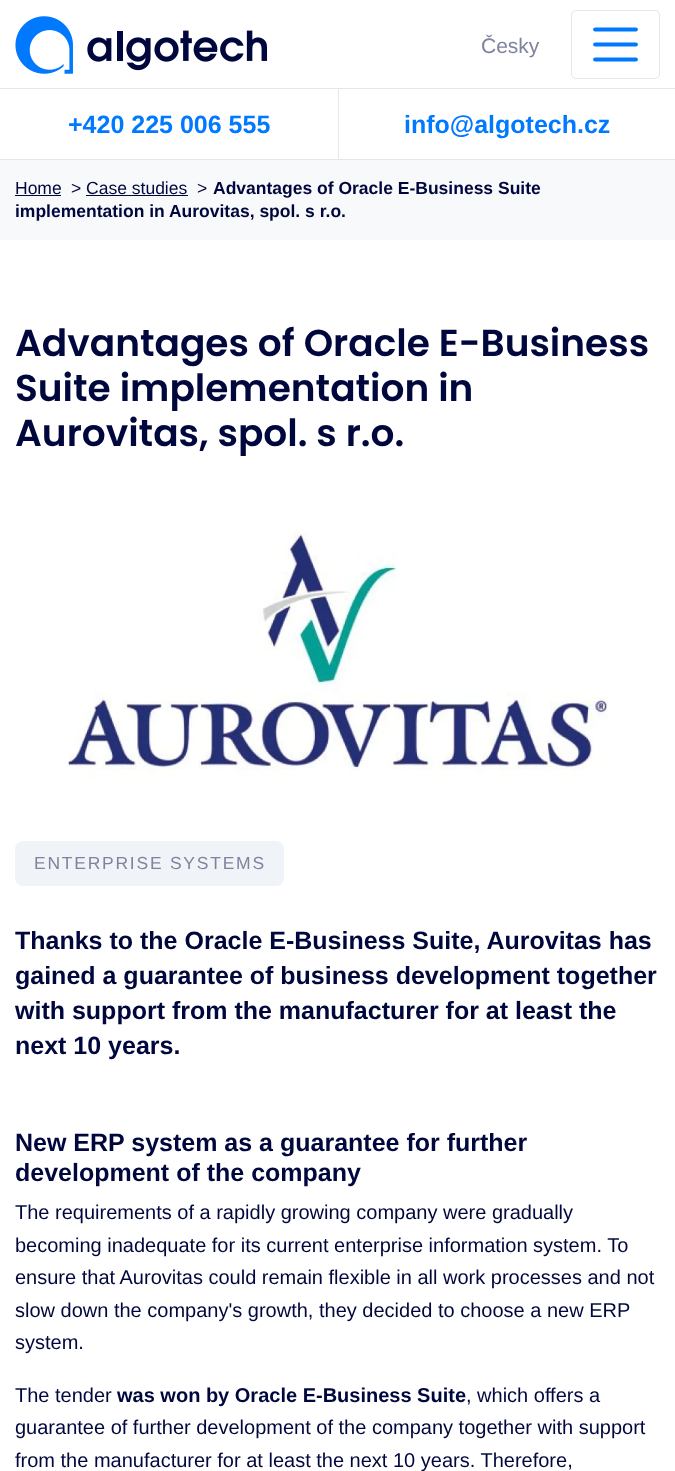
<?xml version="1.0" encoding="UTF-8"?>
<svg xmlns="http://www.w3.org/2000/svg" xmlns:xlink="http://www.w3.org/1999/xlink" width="675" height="1471">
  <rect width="100%" height="100%" fill="#ffffff" />
  <image x="15" y="16" width="253" height="58" xlink:href="image1.png" />
  <rect x="571.5" y="10.5" width="88" height="68" rx="4.5" fill="none" stroke="#e5e6ec" />
  <path d="M 595 29.5 h 41 m -41 15 h 41 m -41 15 h 41" fill="none" stroke="#0079ff" stroke-width="3.8" stroke-linecap="round" />
  <rect y="159" width="675" height="1" fill="#e5e6ec" />
  <rect y="88" width="675" height="1" fill="#e5e6ec" />
  <rect x="338" y="88" width="1" height="71" fill="#e5e6ec" />
  <rect y="160" width="675" height="80" fill="#f8f9fb" />
  <rect x="15" y="195" width="46" height="1" fill="#00073d" />
  <rect x="86" y="195" width="102" height="1" fill="#00073d" />
  <image x="66" y="529" width="543" height="250" xlink:href="image2.png" />
  <rect x="15" y="841" width="269" height="45" rx="8" fill="#f0f3f7" />
  <text x="481" y="53" style="font-family: Liberation Sans; font-size: 21px; fill: #7f839e">Česky</text>
  <text x="68" y="133" style="font-family: Liberation Sans; font-size: 25px; font-weight: bold; fill: #0079ff">+420 225 006 555</text>
  <text x="404" y="133" style="font-family: Liberation Sans; font-size: 25px; font-weight: bold; fill: #0079ff">info@algotech.cz</text>
  <text x="15" y="194" style="font-family: Liberation Sans; font-size: 17.5px; fill: #00073d">Home</text>
  <text x="71" y="194" style="font-family: Liberation Sans; font-size: 17.5px; fill: #00073d">&gt; Case studies</text>
  <text x="197" y="194" style="font-family: Liberation Sans; font-size: 17.5px; fill: #00073d">&gt;</text>
  <text x="213" y="194" style="font-family: Liberation Sans; font-size: 17.5px; font-weight: bold; fill: #00073d">Advantages of Oracle E-Business Suite</text>
  <text x="15" y="217" style="font-family: Liberation Sans; font-size: 17.5px; font-weight: bold; fill: #00073d">implementation in Aurovitas, spol. s r.o.</text>
  <text x="15" y="356" style="font-family: Poppins; font-size: 37.5px; font-weight: 600; fill: #00073d">Advantages of Oracle E-Business</text>
  <text x="15" y="401" style="font-family: Poppins; font-size: 37.5px; font-weight: 600; fill: #00073d">Suite implementation in</text>
  <text x="15" y="446" style="font-family: Poppins; font-size: 37.5px; font-weight: 600; fill: #00073d">Aurovitas, spol. s r.o.</text>
  <text x="34" y="869" style="font-family: Liberation Sans; font-size: 17.5px; letter-spacing: 1.75px; fill: #7f839e">ENTERPRISE SYSTEMS</text>
  <text x="15" y="949" style="font-family: Liberation Sans; font-size: 25px; font-weight: bold; fill: #00073d">Thanks to the Oracle E-Business Suite, Aurovitas has</text>
  <text x="15" y="984" style="font-family: Liberation Sans; font-size: 25px; font-weight: bold; fill: #00073d">gained a guarantee of business development together</text>
  <text x="15" y="1019" style="font-family: Liberation Sans; font-size: 25px; font-weight: bold; fill: #00073d">with support from the manufacturer for at least the</text>
  <text x="15" y="1054" style="font-family: Liberation Sans; font-size: 25px; font-weight: bold; fill: #00073d">next 10 years.</text>
  <text x="15" y="1151" style="font-family: Liberation Sans; font-size: 25px; font-weight: bold; fill: #00073d">New ERP system as a guarantee for further</text>
  <text x="15" y="1181" style="font-family: Liberation Sans; font-size: 25px; font-weight: bold; fill: #00073d">development of the company</text>
  <text x="15" y="1219" style="font-family: Liberation Sans; font-size: 20px; fill: #00073d">The requirements of a rapidly growing company were gradually</text>
  <text x="15" y="1252" style="font-family: Liberation Sans; font-size: 20px; fill: #00073d">becoming inadequate for its current enterprise information system. To</text>
  <text x="15" y="1284" style="font-family: Liberation Sans; font-size: 20px; fill: #00073d">ensure that Aurovitas could remain flexible in all work processes and not</text>
  <text x="15" y="1317" style="font-family: Liberation Sans; font-size: 20px; fill: #00073d">slow down the company's growth, they decided to choose a new ERP</text>
  <text x="15" y="1349" style="font-family: Liberation Sans; font-size: 20px; fill: #00073d">system.</text>
  <text x="15" y="1402" style="font-family: Liberation Sans; font-size: 20px; fill: #00073d">The tender</text>
  <text x="117" y="1402" style="font-family: Liberation Sans; font-size: 20px; font-weight: bold; fill: #00073d">was won by Oracle E-Business Suite</text>
  <text x="466" y="1402" style="font-family: Liberation Sans; font-size: 20px; fill: #00073d">, which offers a</text>
  <text x="15" y="1434" style="font-family: Liberation Sans; font-size: 20px; fill: #00073d">guarantee of further development of the company together with support</text>
  <text x="15" y="1467" style="font-family: Liberation Sans; font-size: 20px; fill: #00073d">from the manufacturer for at least the next 10 years. Therefore,</text>
</svg>
